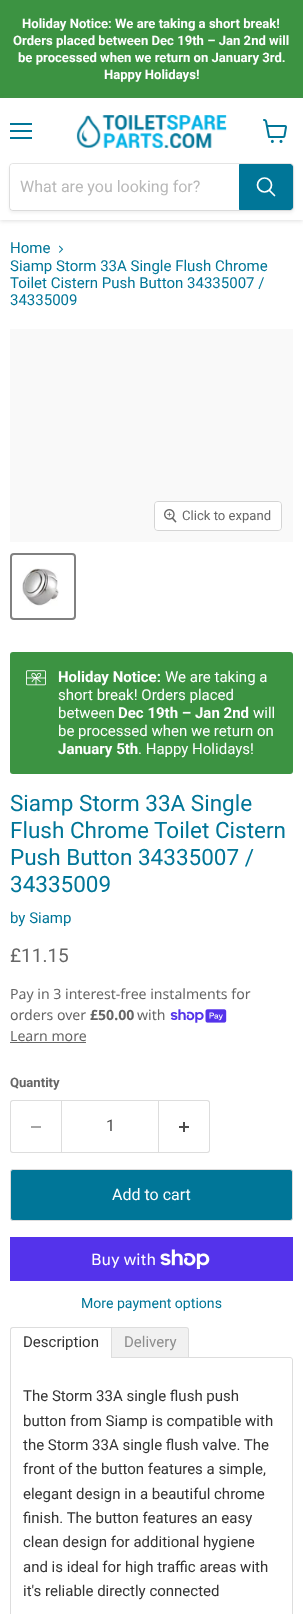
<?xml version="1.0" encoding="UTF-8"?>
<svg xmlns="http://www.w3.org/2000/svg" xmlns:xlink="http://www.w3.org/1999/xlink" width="303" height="1614">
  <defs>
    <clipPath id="clip1"><path d="M 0 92 h 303 v 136 h -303 z m 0 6 h 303 v 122 h -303 z" clip-rule="evenodd" /></clipPath>
  </defs>
  <rect width="100%" height="100%" fill="#ffffff" />
  <rect width="303" height="98" fill="#3c9342" />
  <g clip-path="url(#clip1)">
    <rect y="99" width="303" height="122" fill="#808080" fill-opacity="0.25" filter="blur(2px)" />
  </g>
  <rect x="10" y="123" width="22" height="2" fill="#007698" />
  <rect x="10" y="130" width="22" height="2" fill="#007698" />
  <rect x="10" y="137" width="22" height="2" fill="#007698" />
  <image x="263" y="119" width="24" height="24" xlink:href="image1.png" />
  <image x="76" y="115" width="151" height="33" xlink:href="image2.png" />
  <rect x="9" y="165" width="285" height="48" rx="4" fill="#808080" fill-opacity="0.11" filter="blur(1.5px)" />
  <rect x="9.5" y="163.5" width="284" height="47" rx="3.5" fill="none" stroke="#808080" stroke-opacity="0.2" />
  <path d="M 13 164 h 226 v 46 h -226 c -1.5 0 -3 -1.5 -3 -3 v -40 c 0 -1.5 1.5 -3 3 -3 z" fill="#ffffff" />
  <path d="M 239.5 164.5 h 50.5 c 1.5 0 2.5 1 2.5 2.5 v 40 c 0 1.5 -1 2.5 -2.5 2.5 h -50.5 z" fill="#007698" stroke="#007698" />
  <path d="M 274.5 195.5 l -5 -5" fill="none" stroke="#ffffff" stroke-width="1.7" stroke-linecap="round" />
  <circle cx="264.5" cy="185" r="7" fill="none" stroke="#ffffff" stroke-width="1.7" />
  <image x="59" y="245" width="5" height="8" xlink:href="image3.png" />
  <rect x="10" y="329" width="283" height="213" fill="#f9f9f9" />
  <rect x="154.5" y="501.5" width="127" height="29" rx="3.5" fill="none" stroke="#d4d4d4" />
  <rect x="155" y="502" width="126" height="28" rx="3" fill="#ffffff" fill-opacity="0.9" />
  <image x="164" y="509" width="13" height="14" xlink:href="image4.png" />
  <rect x="11" y="554" width="64" height="65" rx="3" fill="none" stroke="#818181" stroke-width="2" />
  <image x="22" y="568" width="37" height="38" xlink:href="image5.png" />
  <rect x="10" y="652" width="283" height="122" rx="3" fill="#3c9342" />
  <image x="26" y="670" width="20" height="16" xlink:href="image6.png" />
  <image x="170" y="1009" width="57" height="14" xlink:href="image7.png" />
  <rect x="10" y="1042" width="76" height="1" fill="#666666" />
  <path d="M 13 1100 h 48 v 53 h -48 c -2 0 -3 -1 -3 -3 v -47 c 0 -2 1 -3 3 -3 z m 0 1 h 48 v 51 h -48 c -1 0 -2 -1 -2 -2 v -47 c 0 -1 1 -2 2 -2 z" fill="#dddddd" fill-rule="evenodd" />
  <rect x="31" y="1126" width="10" height="2" fill="#a6a6a6" />
  <rect x="61.5" y="1100.5" width="97" height="52" fill="none" stroke="#dddddd" />
  <path d="M 159 1100 h 48 c 2 0 3 1 3 3 v 47 c 0 2 -1 3 -3 3 h -48 z m 0 1 h 48 c 1 0 2 1 2 2 v 47 c 0 1 -1 2 -2 2 h -48 z" fill="#dddddd" fill-rule="evenodd" />
  <image x="179" y="1122" width="10" height="10" xlink:href="image8.png" />
  <rect x="10.5" y="1169.5" width="282" height="51" rx="2.5" fill="#007698" stroke="#dddddd" />
  <rect x="10" y="1237" width="283" height="44" fill="#5433eb" />
  <image x="160" y="1249" width="50" height="20" xlink:href="image9.png" />
  <path d="M 10.5 1357.5 h 279.5 c 1.5 0 2.5 1 2.5 2.5 v 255 c 0 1.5 -1 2.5 -2.5 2.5 h -277 c -1.5 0 -2.5 -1 -2.5 -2.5 z" fill="none" stroke="#dddddd" />
  <path d="M 13 1328 h 98 v 30 h -100 v -28 c 0 -1 1 -2 2 -2 z" fill="#ffffff" />
  <path d="M 13 1327 h 99 v 31 h -102 v -28 c 0 -2 1 -3 3 -3 z m 0 1 h 98 v 30 h -100 v -28 c 0 -1 1 -2 2 -2 z" fill="#dddddd" fill-rule="evenodd" />
  <path d="M 112 1328 h 74 c 1 0 2 1 2 2 v 27 h -76 z" fill="#f1f1f1" />
  <path d="M 112 1327 h 74 c 2 0 3 1 3 3 v 28 h -77 z m 0 1 h 74 c 1 0 2 1 2 2 v 27 h -76 z" fill="#dddddd" fill-rule="evenodd" />
  <text x="22" y="28" style="font-family: Roboto; font-size: 13.1px; font-weight: bold; fill: #ffffff">Holiday Notice: We are taking a short break!</text>
  <text x="13" y="45" style="font-family: Roboto; font-size: 13.1px; font-weight: bold; fill: #ffffff">Orders placed between Dec 19th – Jan 2nd will</text>
  <text x="18" y="62" style="font-family: Roboto; font-size: 13.1px; font-weight: bold; fill: #ffffff">be processed when we return on January 3rd.</text>
  <text x="104" y="79" style="font-family: Roboto; font-size: 13.1px; font-weight: bold; fill: #ffffff">Happy Holidays!</text>
  <text x="20" y="192" style="font-family: Roboto; font-size: 16px; fill: #b8b8b8">What are you looking for?</text>
  <text x="10" y="253" style="font-family: Roboto; font-size: 15px; fill: #007698">Home</text>
  <text x="10" y="271" style="font-family: Roboto; font-size: 15px; fill: #007698">Siamp Storm 33A Single Flush Chrome</text>
  <text x="10" y="288" style="font-family: Roboto; font-size: 15px; fill: #007698">Toilet Cistern Push Button 34335007 /</text>
  <text x="10" y="305" style="font-family: Roboto; font-size: 15px; fill: #007698">34335009</text>
  <text x="182" y="520" style="font-family: Roboto; font-size: 13.1px; fill: #666666">Click to expand</text>
  <text x="58" y="682" style="font-family: Roboto; font-size: 15px; font-weight: bold; fill: #ffffff">Holiday Notice:</text>
  <text x="165" y="682" style="font-family: Roboto; font-size: 15px; fill: #ffffff">We are taking a</text>
  <text x="58" y="700" style="font-family: Roboto; font-size: 15px; fill: #ffffff">short break! Orders placed</text>
  <text x="58" y="718" style="font-family: Roboto; font-size: 15px; fill: #ffffff">between</text>
  <text x="118" y="718" style="font-family: Roboto; font-size: 15px; font-weight: bold; fill: #ffffff">Dec 19th – Jan 2nd</text>
  <text x="253" y="718" style="font-family: Roboto; font-size: 15px; fill: #ffffff">will</text>
  <text x="58" y="736" style="font-family: Roboto; font-size: 15px; fill: #ffffff">be processed when we return on</text>
  <text x="58" y="754" style="font-family: Roboto; font-size: 15px; font-weight: bold; fill: #ffffff">January 5th</text>
  <text x="138" y="754" style="font-family: Roboto; font-size: 15px; fill: #ffffff">. Happy Holidays!</text>
  <text x="10" y="811" style="font-family: Roboto; font-size: 22.5px; fill: #007698">Siamp Storm 33A Single</text>
  <text x="10" y="838" style="font-family: Roboto; font-size: 22.5px; fill: #007698">Flush Chrome Toilet Cistern</text>
  <text x="10" y="865" style="font-family: Roboto; font-size: 22.5px; fill: #007698">Push Button 34335007 /</text>
  <text x="10" y="892" style="font-family: Roboto; font-size: 22.5px; fill: #007698">34335009</text>
  <text x="10" y="923" style="font-family: Roboto; font-size: 15px; fill: #007698">by Siamp</text>
  <text x="10" y="962" style="font-family: Roboto; font-size: 19px; fill: #666666">£11.15</text>
  <text x="10" y="999" style="font-family: Noto Sans; font-size: 14.1px; fill: #666666">Pay in 3 interest-free instalments for</text>
  <text x="10" y="1020" style="font-family: Noto Sans; font-size: 14.1px; fill: #666666">orders over</text>
  <text x="90" y="1020" style="font-family: Noto Sans; font-size: 14.1px; font-weight: bold; fill: #666666">£50.00</text>
  <text x="137" y="1020" style="font-family: Noto Sans; font-size: 14.1px; fill: #666666">with</text>
  <text x="10" y="1041" style="font-family: Noto Sans; font-size: 14.1px; fill: #666666">Learn more</text>
  <text x="10" y="1087" style="font-family: Roboto; font-size: 13.1px; font-weight: bold; fill: #666666">Quantity</text>
  <text x="106" y="1131" style="font-family: Roboto; font-size: 16px; fill: #4d4d4d">1</text>
  <text x="112" y="1200" style="font-family: Roboto; font-size: 16px; fill: #ffffff">Add to cart</text>
  <text x="91" y="1265" style="font-family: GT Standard; font-size: 16px; fill: #ffffff">Buy with</text>
  <text x="81" y="1308" style="font-family: Roboto; font-size: 14.1px; fill: #007698">More payment options</text>
  <text x="23" y="1347" style="font-family: Roboto; font-size: 15px; fill: #333333">Description</text>
  <text x="124" y="1347" style="font-family: Roboto; font-size: 15px; fill: #8d8d8d">Delivery</text>
  <text x="23" y="1401" style="font-family: Roboto; font-size: 15px; fill: #333333">The Storm 33A single flush push</text>
  <text x="23" y="1426" style="font-family: Roboto; font-size: 15px; fill: #333333">button from Siamp is compatible with</text>
  <text x="23" y="1450" style="font-family: Roboto; font-size: 15px; fill: #333333">the Storm 33A single flush valve. The</text>
  <text x="23" y="1474" style="font-family: Roboto; font-size: 15px; fill: #333333">front of the button features a simple,</text>
  <text x="23" y="1499" style="font-family: Roboto; font-size: 15px; fill: #333333">elegant design in a beautiful chrome</text>
  <text x="23" y="1523" style="font-family: Roboto; font-size: 15px; fill: #333333">finish. The button features an easy</text>
  <text x="23" y="1547" style="font-family: Roboto; font-size: 15px; fill: #333333">clean design for additional hygiene</text>
  <text x="23" y="1572" style="font-family: Roboto; font-size: 15px; fill: #333333">and is ideal for high traffic areas with</text>
  <text x="23" y="1596" style="font-family: Roboto; font-size: 15px; fill: #333333">it's reliable directly connected</text>
</svg>
